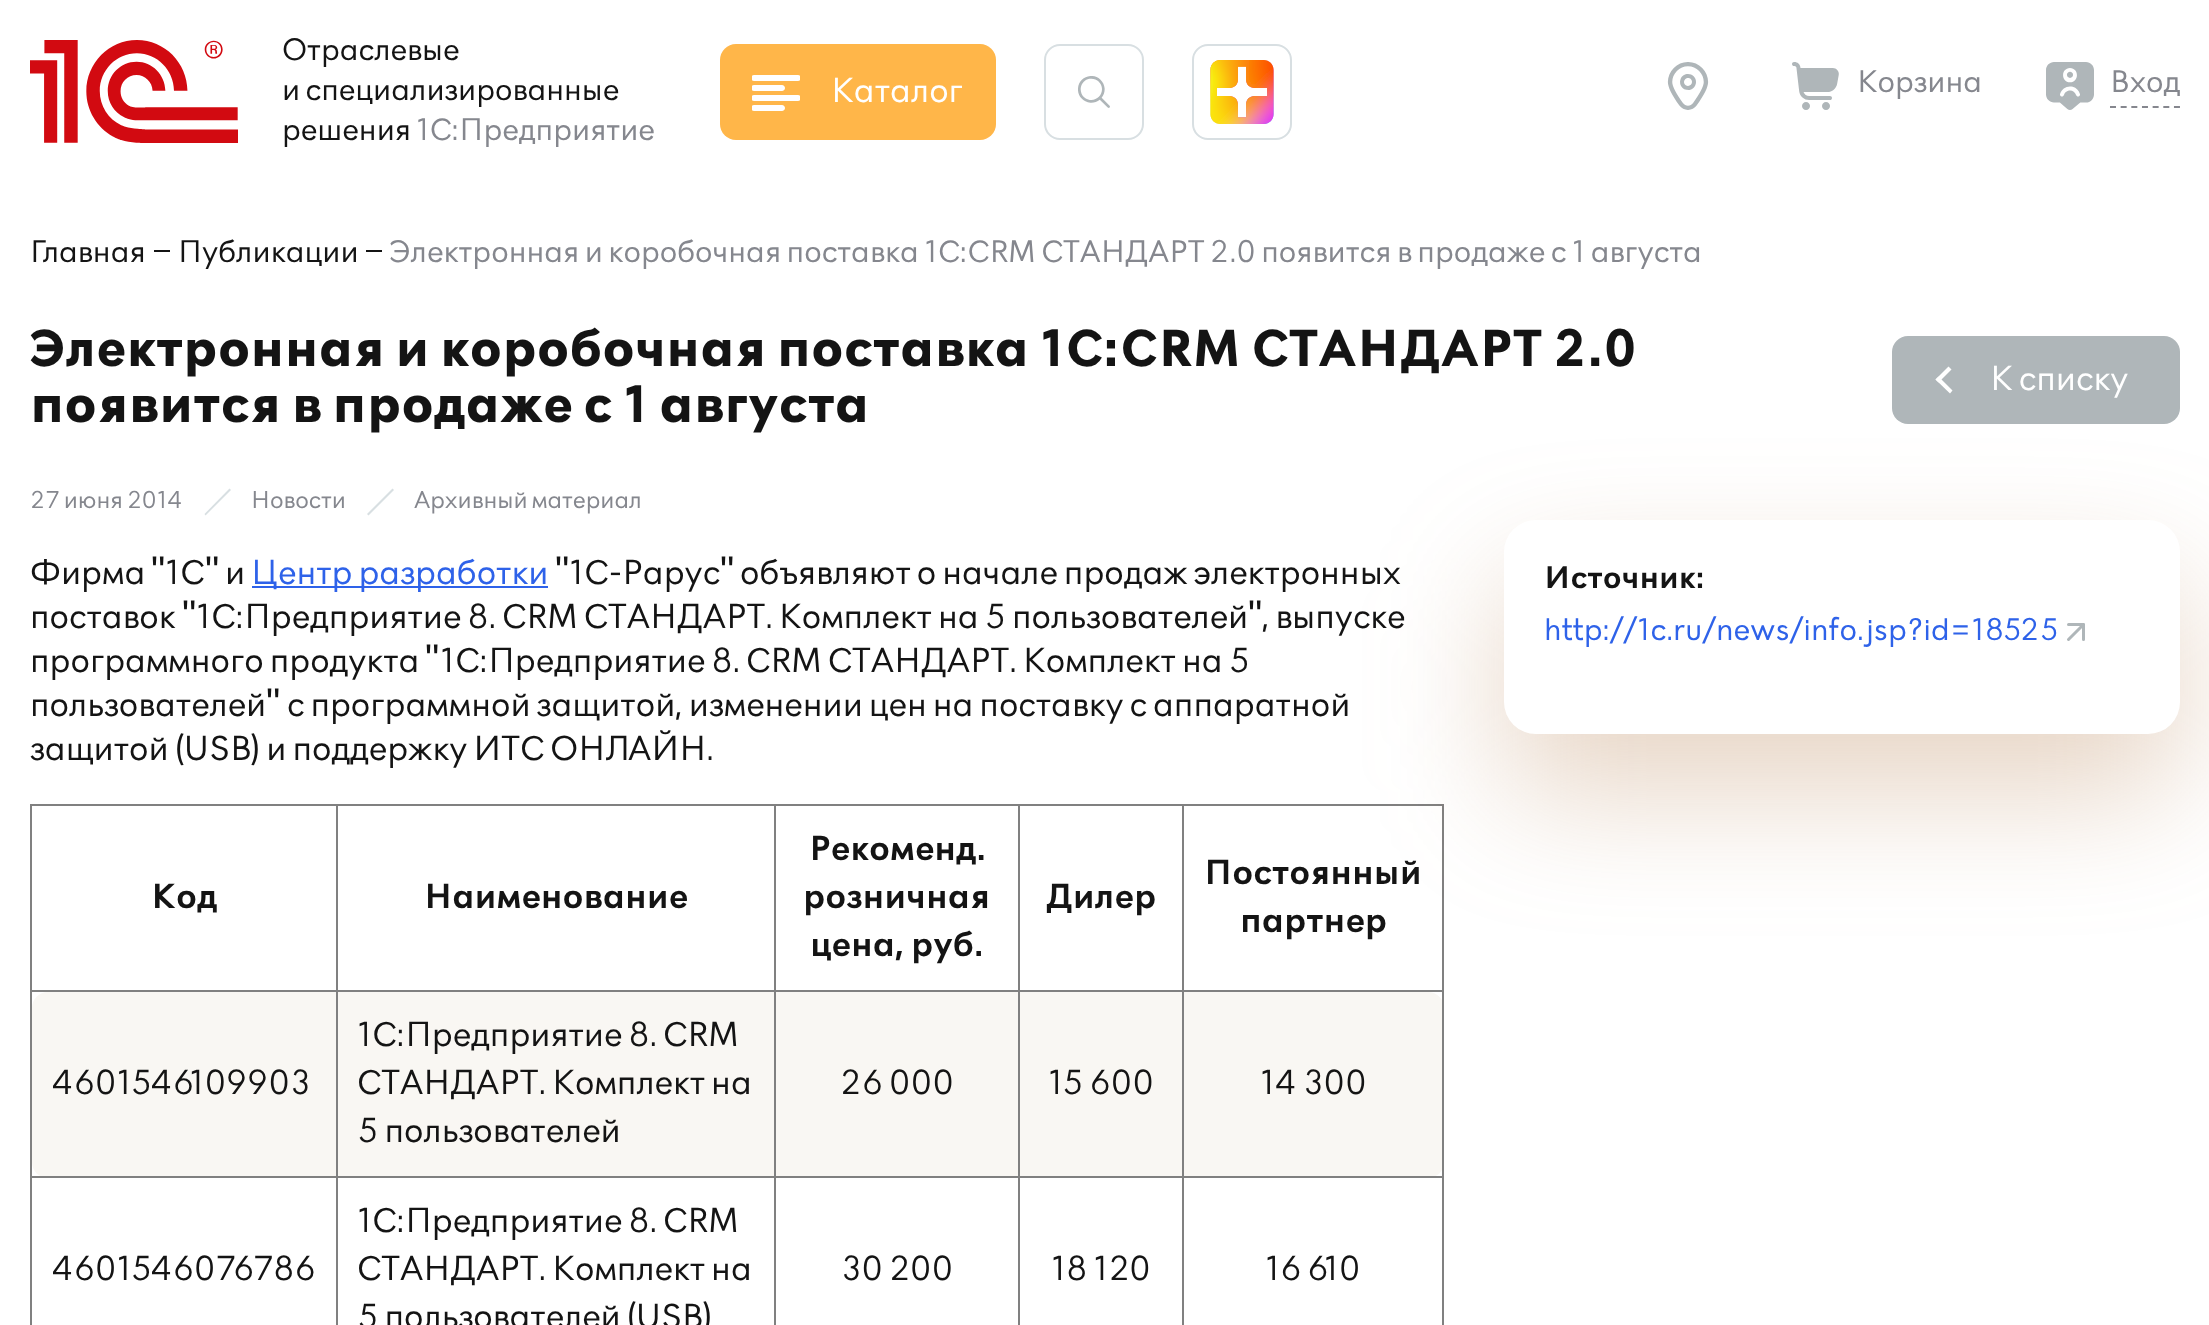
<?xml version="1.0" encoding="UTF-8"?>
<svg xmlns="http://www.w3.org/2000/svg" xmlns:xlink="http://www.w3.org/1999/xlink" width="2209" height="1325">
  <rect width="100%" height="100%" fill="#ffffff" />
  <image x="30" y="40" width="208" height="103" xlink:href="image1.png" />
  <rect x="720" y="44" width="276" height="96" rx="16" fill="#ffb649" />
  <image x="752" y="75" width="48" height="36" xlink:href="image2.png" />
  <rect x="1045" y="45" width="98" height="94" rx="15" fill="none" stroke="#d8dfe2" stroke-width="2" />
  <image x="1078" y="76" width="32" height="32" xlink:href="image3.png" />
  <rect x="1193" y="45" width="98" height="94" rx="15" fill="none" stroke="#d8dfe2" stroke-width="2" />
  <image x="1210" y="60" width="64" height="64" xlink:href="image4.png" />
  <image x="1210" y="60" width="64" height="64" xlink:href="image5.png" />
  <image x="1667" y="62" width="42" height="48" xlink:href="image6.png" />
  <image x="1792" y="62" width="47" height="48" xlink:href="image7.png" />
  <image x="2046" y="62" width="48" height="48" xlink:href="image8.png" />
  <path d="M 2110 107 h 70" fill="none" stroke="#85878e" stroke-width="2" stroke-dasharray="6 4.66" />
  <rect x="154" y="250" width="16" height="2" fill="#141414" />
  <rect x="366" y="250" width="16" height="2" fill="#141414" />
  <rect x="30" y="804" width="1414" height="2" fill="#808080" />
  <path d="M 1184 992 h 244 c 9 0 16 7 16 16 v 154 c 0 9 -7 16 -16 16 h -244 z" fill="#f9f7f3" />
  <rect x="1442" y="804" width="2" height="521" fill="#808080" />
  <rect x="1504" y="580" width="676" height="214" rx="32" fill="#af753f" fill-opacity="0.3" filter="blur(65px)" />
  <rect x="1892" y="336" width="288" height="88" rx="16" fill="#afb6b9" />
  <path d="M 1935.5 379.5 l 13 -13 l 3 3 l -13 13 z" fill="#ffffff" />
  <path d="M 1935.5 379.5 l 3 -3 l 14 14 l -2.5 3 z" fill="#ffffff" />
  <path d="M 229.5 488.5 l 1.5 1.5 l -25.5 25.5 l -1 -1.5 z" fill="#d8dfe2" />
  <path d="M 392.5 488.5 l 1.5 1.5 l -25.5 25.5 l -1.5 -1.5 z" fill="#d8dfe2" />
  <rect x="252" y="586" width="296" height="2" fill="#2e62e9" />
  <rect x="30" y="804" width="2" height="521" fill="#808080" />
  <rect x="1182" y="990" width="262" height="2" fill="#808080" />
  <rect x="1182" y="1176" width="262" height="2" fill="#808080" />
  <rect x="1182" y="1176" width="2" height="149" fill="#808080" />
  <rect x="1018" y="1176" width="166" height="2" fill="#808080" />
  <rect x="1182" y="990" width="2" height="188" fill="#808080" />
  <rect x="1018" y="990" width="166" height="2" fill="#808080" />
  <rect x="1018" y="1176" width="2" height="149" fill="#808080" />
  <rect x="774" y="1176" width="246" height="2" fill="#808080" />
  <rect x="1018" y="990" width="2" height="188" fill="#808080" />
  <rect x="774" y="990" width="246" height="2" fill="#808080" />
  <rect x="774" y="1176" width="2" height="149" fill="#808080" />
  <rect x="336" y="1176" width="440" height="2" fill="#808080" />
  <rect x="774" y="990" width="2" height="188" fill="#808080" />
  <rect x="336" y="990" width="440" height="2" fill="#808080" />
  <path d="M 48 992 h 288 v 186 h -288 c -9 0 -16 -7 -16 -16 v -154 c 0 -9 7 -16 16 -16 z" fill="#f9f7f3" />
  <rect x="336" y="1176" width="2" height="149" fill="#808080" />
  <rect x="30" y="1176" width="308" height="2" fill="#808080" />
  <rect x="336" y="990" width="2" height="188" fill="#808080" />
  <rect x="30" y="990" width="308" height="2" fill="#808080" />
  <rect x="336" y="804" width="2" height="188" fill="#808080" />
  <rect x="774" y="804" width="2" height="188" fill="#808080" />
  <rect x="1018" y="804" width="2" height="188" fill="#808080" />
  <rect x="1182" y="804" width="2" height="188" fill="#808080" />
  <rect x="338" y="992" width="436" height="184" fill="#f9f7f3" />
  <rect x="776" y="992" width="242" height="184" fill="#f9f7f3" />
  <rect x="1020" y="992" width="162" height="184" fill="#f9f7f3" />
  <rect x="1504" y="520" width="676" height="214" rx="32" fill="#ffffff" />
  <image x="2067" y="623" width="18" height="18" xlink:href="image9.png" />
  <text x="282" y="60" style="font-family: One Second; font-size: 36px; fill: #141414">Отраслевые</text>
  <text x="282" y="100" style="font-family: One Second; font-size: 36px; fill: #141414">и специализированные</text>
  <text x="282" y="140" style="font-family: One Second; font-size: 36px; fill: #141414">решения</text>
  <text x="416" y="140" style="font-family: One Second; font-size: 36px; fill: #85878e">1С:Предприятие</text>
  <text x="831" y="102" style="font-family: One Second; font-size: 40px; fill: #ffffff">Каталог</text>
  <text x="1857" y="92" style="font-family: One Second; font-size: 36px; fill: #85878e">Корзина</text>
  <text x="2110" y="92" style="font-family: One Second; font-size: 36px; fill: #85878e">Вход</text>
  <text x="30" y="262" style="font-family: One Second; font-size: 36px; fill: #141414">Главная</text>
  <text x="178" y="262" style="font-family: One Second; font-size: 36px; fill: #141414">Публикации</text>
  <text x="390" y="262" style="font-family: One Second; font-size: 36px; fill: #85878e">Электронная и коробочная поставка 1С:CRM СТАНДАРТ 2.0 появится в продаже с 1 августа</text>
  <text x="30" y="366" style="font-family: One Second; font-size: 60px; font-weight: bold; fill: #141414">Электронная и коробочная поставка 1С:CRM СТАНДАРТ 2.0</text>
  <text x="30" y="422" style="font-family: One Second; font-size: 60px; font-weight: bold; fill: #141414">появится в продаже с 1 августа</text>
  <text x="1990" y="390" style="font-family: One Second; font-size: 40px; fill: #ffffff">К списку</text>
  <text x="30" y="508" style="font-family: One Second; font-size: 28px; fill: #85878e">27 июня 2014</text>
  <text x="251" y="508" style="font-family: One Second; font-size: 28px; fill: #85878e">Новости</text>
  <text x="414" y="508" style="font-family: One Second; font-size: 28px; fill: #85878e">Архивный материал</text>
  <text x="30" y="584" style="font-family: One Second; font-size: 40px; fill: #141414">Фирма</text>
  <text x="151" y="584" style="font-family: Liberation Sans; font-size: 40px; fill: #141414">"</text>
  <text x="165" y="584" style="font-family: One Second; font-size: 40px; fill: #141414">1С</text>
  <text x="205" y="584" style="font-family: Liberation Sans; font-size: 40px; fill: #141414">"</text>
  <text x="225" y="584" style="font-family: One Second; font-size: 40px; fill: #141414">и</text>
  <text x="251" y="584" style="font-family: One Second; font-size: 40px; fill: #2e62e9">Центр разработки</text>
  <text x="555" y="584" style="font-family: Liberation Sans; font-size: 40px; fill: #141414">"</text>
  <text x="569" y="584" style="font-family: One Second; font-size: 40px; fill: #141414">1С-Рарус</text>
  <text x="720" y="584" style="font-family: Liberation Sans; font-size: 40px; fill: #141414">"</text>
  <text x="740" y="584" style="font-family: One Second; font-size: 40px; fill: #141414">объявляют о начале продаж электронных</text>
  <text x="30" y="628" style="font-family: One Second; font-size: 40px; fill: #141414">поставок</text>
  <text x="182" y="628" style="font-family: Liberation Sans; font-size: 40px; fill: #141414">"</text>
  <text x="196" y="628" style="font-family: One Second; font-size: 40px; fill: #141414">1С:Предприятие 8. CRM СТАНДАРТ. Комплект на 5 пользователей</text>
  <text x="1248" y="628" style="font-family: Liberation Sans; font-size: 40px; fill: #141414">"</text>
  <text x="1262" y="628" style="font-family: One Second; font-size: 40px; fill: #141414">, выпуске</text>
  <text x="30" y="672" style="font-family: One Second; font-size: 40px; fill: #141414">программного продукта</text>
  <text x="425" y="672" style="font-family: Liberation Sans; font-size: 40px; fill: #141414">"</text>
  <text x="440" y="672" style="font-family: One Second; font-size: 40px; fill: #141414">1С:Предприятие 8. CRM СТАНДАРТ. Комплект на 5</text>
  <text x="30" y="716" style="font-family: One Second; font-size: 40px; fill: #141414">пользователей</text>
  <text x="266" y="716" style="font-family: Liberation Sans; font-size: 40px; fill: #141414">"</text>
  <text x="287" y="716" style="font-family: One Second; font-size: 40px; fill: #141414">с программной защитой, изменении цен на поставку с аппаратной</text>
  <text x="30" y="760" style="font-family: One Second; font-size: 40px; fill: #141414">защитой (USB) и поддержку ИТС ОНЛАЙН.</text>
  <text x="151" y="908" style="font-family: One Second; font-size: 40px; font-weight: 600; fill: #141414">Код</text>
  <text x="424" y="908" style="font-family: One Second; font-size: 40px; font-weight: 600; fill: #141414">Наименование</text>
  <text x="809" y="860" style="font-family: One Second; font-size: 40px; font-weight: 600; fill: #141414">Рекоменд.</text>
  <text x="803" y="908" style="font-family: One Second; font-size: 40px; font-weight: 600; fill: #141414">розничная</text>
  <text x="810" y="956" style="font-family: One Second; font-size: 40px; font-weight: 600; fill: #141414">цена, руб.</text>
  <text x="1046" y="908" style="font-family: One Second; font-size: 40px; font-weight: 600; fill: #141414">Дилер</text>
  <text x="1204" y="884" style="font-family: One Second; font-size: 40px; font-weight: 600; fill: #141414">Постоянный</text>
  <text x="1240" y="932" style="font-family: One Second; font-size: 40px; font-weight: 600; fill: #141414">партнер</text>
  <text x="52" y="1094" style="font-family: One Second; font-size: 40px; fill: #141414">4601546109903</text>
  <text x="357" y="1046" style="font-family: One Second; font-size: 40px; fill: #141414">1С:Предприятие 8. CRM</text>
  <text x="357" y="1094" style="font-family: One Second; font-size: 40px; fill: #141414">СТАНДАРТ. Комплект на</text>
  <text x="357" y="1142" style="font-family: One Second; font-size: 40px; fill: #141414">5 пользователей</text>
  <text x="840" y="1094" style="font-family: One Second; font-size: 40px; fill: #141414">26 000</text>
  <text x="1048" y="1094" style="font-family: One Second; font-size: 40px; fill: #141414">15 600</text>
  <text x="1260" y="1094" style="font-family: One Second; font-size: 40px; fill: #141414">14 300</text>
  <text x="52" y="1280" style="font-family: One Second; font-size: 40px; fill: #141414">4601546076786</text>
  <text x="357" y="1232" style="font-family: One Second; font-size: 40px; fill: #141414">1С:Предприятие 8. CRM</text>
  <text x="357" y="1280" style="font-family: One Second; font-size: 40px; fill: #141414">СТАНДАРТ. Комплект на</text>
  <text x="357" y="1328" style="font-family: One Second; font-size: 40px; fill: #141414">5 пользователей (USB)</text>
  <text x="841" y="1280" style="font-family: One Second; font-size: 40px; fill: #141414">30 200</text>
  <text x="1051" y="1280" style="font-family: One Second; font-size: 40px; fill: #141414">18 120</text>
  <text x="1265" y="1280" style="font-family: One Second; font-size: 40px; fill: #141414">16 610</text>
  <text x="1544" y="588" style="font-family: One Second; font-size: 36px; font-weight: 600; fill: #141414">Источник:</text>
  <text x="1544" y="640" style="font-family: One Second; font-size: 36px; fill: #2e62e9">http://1c.ru/news/info.jsp?id=18525</text>
</svg>
